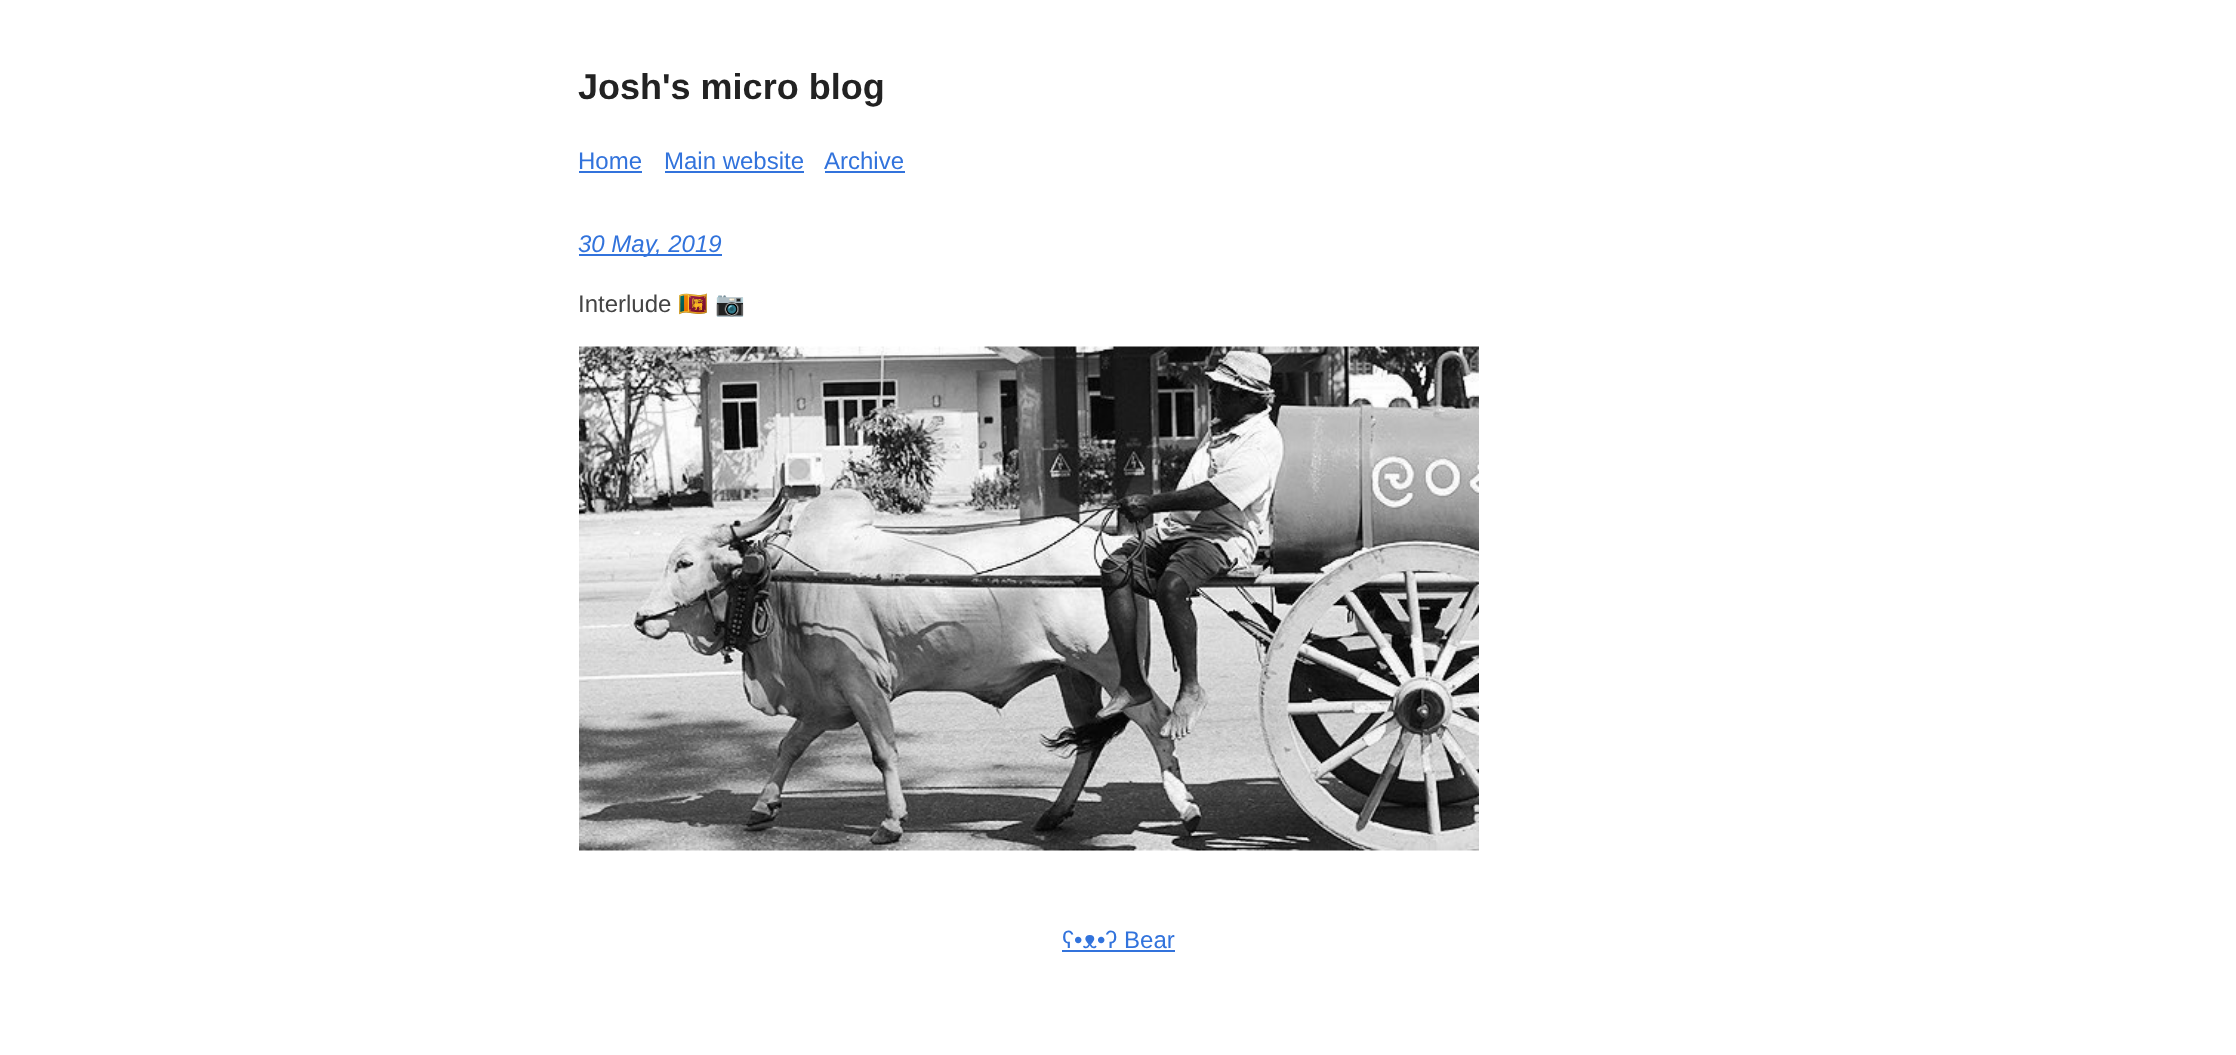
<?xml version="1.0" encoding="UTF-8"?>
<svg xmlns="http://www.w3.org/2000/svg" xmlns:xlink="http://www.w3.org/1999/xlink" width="2236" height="1055">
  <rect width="100%" height="100%" fill="#ffffff" />
  <rect x="579" y="171" width="63" height="2" fill="#3273dc" />
  <rect x="665" y="171" width="139" height="2" fill="#3273dc" />
  <rect x="825" y="171" width="80" height="2" fill="#3273dc" />
  <rect x="579" y="254" width="143" height="2" fill="#3273dc" />
  <image x="579" y="346" width="900" height="505" xlink:href="image1.png" />
  <rect x="1062" y="950" width="113" height="2" fill="#3273dc" />
  <text x="578" y="99" style="font-family: Liberation Sans; font-size: 36px; font-weight: bold; fill: #222222">Josh's micro blog</text>
  <text x="578" y="169" style="font-family: Liberation Sans; font-size: 24px; fill: #3273dc">Home</text>
  <text x="664" y="169" style="font-family: Liberation Sans; font-size: 24px; fill: #3273dc">Main website</text>
  <text x="824" y="169" style="font-family: Liberation Sans; font-size: 24px; fill: #3273dc">Archive</text>
  <text x="578" y="252" style="font-family: Liberation Sans; font-size: 24px; font-style: italic; fill: #3273dc">30 May, 2019</text>
  <text x="578" y="312" style="font-family: Liberation Sans; font-size: 24px; fill: #444444">Interlude</text>
  <text x="678" y="312" style="font-family: Noto Color Emoji; font-size: 24px; fill: #444444">🇱🇰</text>
  <text x="715" y="312" style="font-family: Noto Color Emoji; font-size: 24px; fill: #444444">📷</text>
  <text x="1062" y="948" style="font-family: Liberation Sans; font-size: 24px; fill: #3273dc">ʕ•ᴥ•ʔ Bear</text>
</svg>
